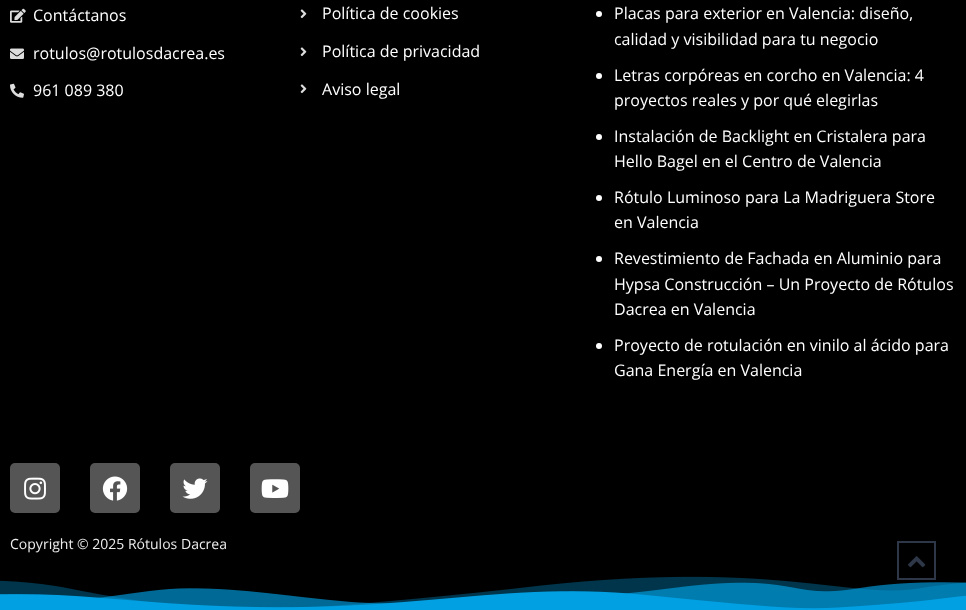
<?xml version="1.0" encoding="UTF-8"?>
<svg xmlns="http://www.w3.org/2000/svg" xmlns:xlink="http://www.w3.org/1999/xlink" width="966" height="610">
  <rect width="100%" height="100%" fill="#000000" />
  <image x="10" y="8" width="16" height="15" xlink:href="image1.png" />
  <image x="10" y="48" width="14" height="11" xlink:href="image2.png" />
  <image x="10" y="83" width="14" height="15" xlink:href="image3.png" />
  <image x="300" y="9" width="7" height="10" xlink:href="image4.png" />
  <image x="300" y="47" width="7" height="10" xlink:href="image4.png" />
  <image x="300" y="84" width="7" height="10" xlink:href="image4.png" />
  <circle cx="599" cy="14" r="3" fill="#ffffff" />
  <circle cx="599" cy="76" r="3" fill="#ffffff" />
  <circle cx="599" cy="137" r="3" fill="#ffffff" />
  <circle cx="599" cy="198" r="3" fill="#ffffff" />
  <circle cx="599" cy="259" r="3" fill="#ffffff" />
  <circle cx="599" cy="346" r="3" fill="#ffffff" />
  <rect x="10" y="463" width="50" height="50" rx="5" fill="#555555" />
  <image x="24" y="477" width="22" height="23" xlink:href="image5.png" />
  <rect x="90" y="463" width="50" height="50" rx="5" fill="#555555" />
  <image x="102" y="476" width="26" height="25" xlink:href="image6.png" />
  <rect x="170" y="463" width="50" height="50" rx="5" fill="#555555" />
  <image x="182" y="478" width="26" height="21" xlink:href="image7.png" />
  <rect x="250" y="463" width="50" height="50" rx="5" fill="#555555" />
  <image x="261" y="479" width="28" height="19" xlink:href="image8.png" />
  <image x="0" y="576" width="966" height="34" xlink:href="image9.png" />
  <rect x="898" y="542" width="37" height="37" fill="none" stroke="#2d3748" stroke-width="2" />
  <image x="908" y="556" width="18" height="12" xlink:href="image10.png" />
  <text x="33" y="21" style="font-family: Open Sans; font-size: 16px; fill: #ffffff">Contáctanos</text>
  <text x="33" y="59" style="font-family: Open Sans; font-size: 16px; fill: #ffffff">rotulos@rotulosdacrea.es</text>
  <text x="33" y="96" style="font-family: Open Sans; font-size: 16px; fill: #ffffff">961 089 380</text>
  <text x="322" y="19" style="font-family: Open Sans; font-size: 16px; fill: #ffffff">Política de cookies</text>
  <text x="322" y="57" style="font-family: Open Sans; font-size: 16px; fill: #ffffff">Política de privacidad</text>
  <text x="322" y="95" style="font-family: Open Sans; font-size: 16px; fill: #ffffff">Aviso legal</text>
  <text x="614" y="19" style="font-family: Open Sans; font-size: 16px; fill: #ffffff">Placas para exterior en Valencia: diseño,</text>
  <text x="614" y="45" style="font-family: Open Sans; font-size: 16px; fill: #ffffff">calidad y visibilidad para tu negocio</text>
  <text x="614" y="81" style="font-family: Open Sans; font-size: 16px; fill: #ffffff">Letras corpóreas en corcho en Valencia: 4</text>
  <text x="614" y="106" style="font-family: Open Sans; font-size: 16px; fill: #ffffff">proyectos reales y por qué elegirlas</text>
  <text x="614" y="142" style="font-family: Open Sans; font-size: 16px; fill: #ffffff">Instalación de Backlight en Cristalera para</text>
  <text x="614" y="167" style="font-family: Open Sans; font-size: 16px; fill: #ffffff">Hello Bagel en el Centro de Valencia</text>
  <text x="614" y="203" style="font-family: Open Sans; font-size: 16px; fill: #ffffff">Rótulo Luminoso para La Madriguera Store</text>
  <text x="614" y="228" style="font-family: Open Sans; font-size: 16px; fill: #ffffff">en Valencia</text>
  <text x="614" y="264" style="font-family: Open Sans; font-size: 16px; fill: #ffffff">Revestimiento de Fachada en Aluminio para</text>
  <text x="614" y="290" style="font-family: Open Sans; font-size: 16px; fill: #ffffff">Hypsa Construcción – Un Proyecto de Rótulos</text>
  <text x="614" y="315" style="font-family: Open Sans; font-size: 16px; fill: #ffffff">Dacrea en Valencia</text>
  <text x="614" y="351" style="font-family: Open Sans; font-size: 16px; fill: #ffffff">Proyecto de rotulación en vinilo al ácido para</text>
  <text x="614" y="376" style="font-family: Open Sans; font-size: 16px; fill: #ffffff">Gana Energía en Valencia</text>
  <text x="10" y="549" style="font-family: Open Sans; font-size: 14px; fill: #ededed">Copyright © 2025 Rótulos Dacrea</text>
</svg>
